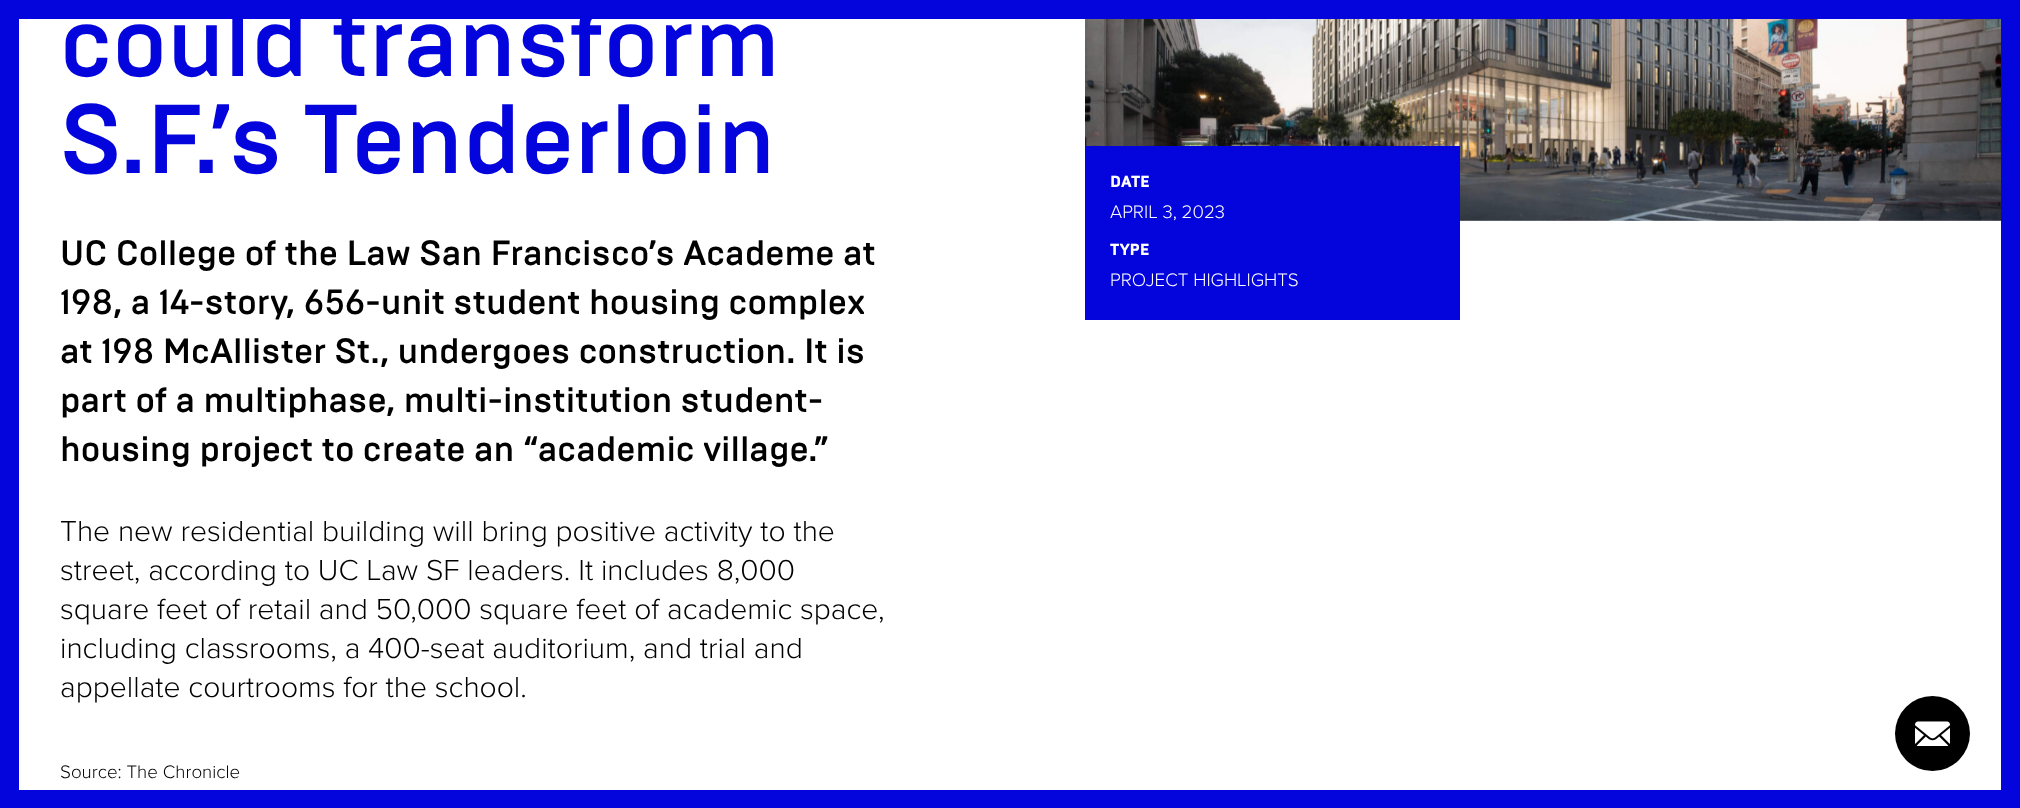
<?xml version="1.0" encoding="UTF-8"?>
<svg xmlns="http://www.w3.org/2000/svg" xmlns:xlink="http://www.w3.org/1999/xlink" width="2020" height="808">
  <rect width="100%" height="100%" fill="#ffffff" />
  <image x="1085" y="19" width="916" height="202" xlink:href="image1.png" />
  <rect x="1085" y="146" width="375" height="174" fill="#0404dd" />
  <circle cx="1932.5" cy="733.5" r="37.5" fill="#000000" />
  <image x="1915" y="721" width="35" height="25" xlink:href="image2.png" />
  <rect x="9.5" y="9.5" width="2001" height="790" fill="none" stroke="#0404dd" stroke-width="19" />
  <text x="60" y="76" style="font-family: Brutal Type; font-size: 97.5px; font-weight: 500; fill: #0404dd">could transform</text>
  <text x="60" y="173" style="font-family: Brutal Type; font-size: 97.5px; font-weight: 500; fill: #0404dd">S.F.’s Tenderloin</text>
  <text x="60" y="265" style="font-family: Brutal Type; font-size: 35px; font-weight: 500; fill: #000000">UC College of the Law San Francisco’s Academe at</text>
  <text x="60" y="314" style="font-family: Brutal Type; font-size: 35px; font-weight: 500; fill: #000000">198, a 14-story, 656-unit student housing complex</text>
  <text x="60" y="363" style="font-family: Brutal Type; font-size: 35px; font-weight: 500; fill: #000000">at 198 McAllister St., undergoes construction. It is</text>
  <text x="60" y="412" style="font-family: Brutal Type; font-size: 35px; font-weight: 500; fill: #000000">part of a multiphase, multi-institution student-</text>
  <text x="60" y="461" style="font-family: Brutal Type; font-size: 35px; font-weight: 500; fill: #000000">housing project to create an “academic village.”</text>
  <text x="60" y="541" style="font-family: Proxima Nova; font-size: 30px; font-weight: 300; fill: #000000">The new residential building will bring positive activity to the</text>
  <text x="60" y="580" style="font-family: Proxima Nova; font-size: 30px; font-weight: 300; fill: #000000">street, according to UC Law SF leaders. It includes 8,000</text>
  <text x="60" y="619" style="font-family: Proxima Nova; font-size: 30px; font-weight: 300; fill: #000000">square feet of retail and 50,000 square feet of academic space,</text>
  <text x="60" y="658" style="font-family: Proxima Nova; font-size: 30px; font-weight: 300; fill: #000000">including classrooms, a 400-seat auditorium, and trial and</text>
  <text x="60" y="697" style="font-family: Proxima Nova; font-size: 30px; font-weight: 300; fill: #000000">appellate courtrooms for the school.</text>
  <text x="60" y="778" style="font-family: Proxima Nova; font-size: 18.75px; font-weight: 300; fill: #000000">Source: The Chronicle</text>
  <text x="1110" y="187" style="font-family: Brutal Type; font-size: 16px; font-weight: 800; fill: #ffffff">DATE</text>
  <text x="1110" y="218" style="font-family: Proxima Nova; font-size: 18.75px; font-weight: 300; fill: #ffffff">APRIL 3, 2023</text>
  <text x="1110" y="255" style="font-family: Brutal Type; font-size: 16px; font-weight: 800; fill: #ffffff">TYPE</text>
  <text x="1110" y="286" style="font-family: Proxima Nova; font-size: 18.75px; font-weight: 300; fill: #ffffff">PROJECT HIGHLIGHTS</text>
</svg>
